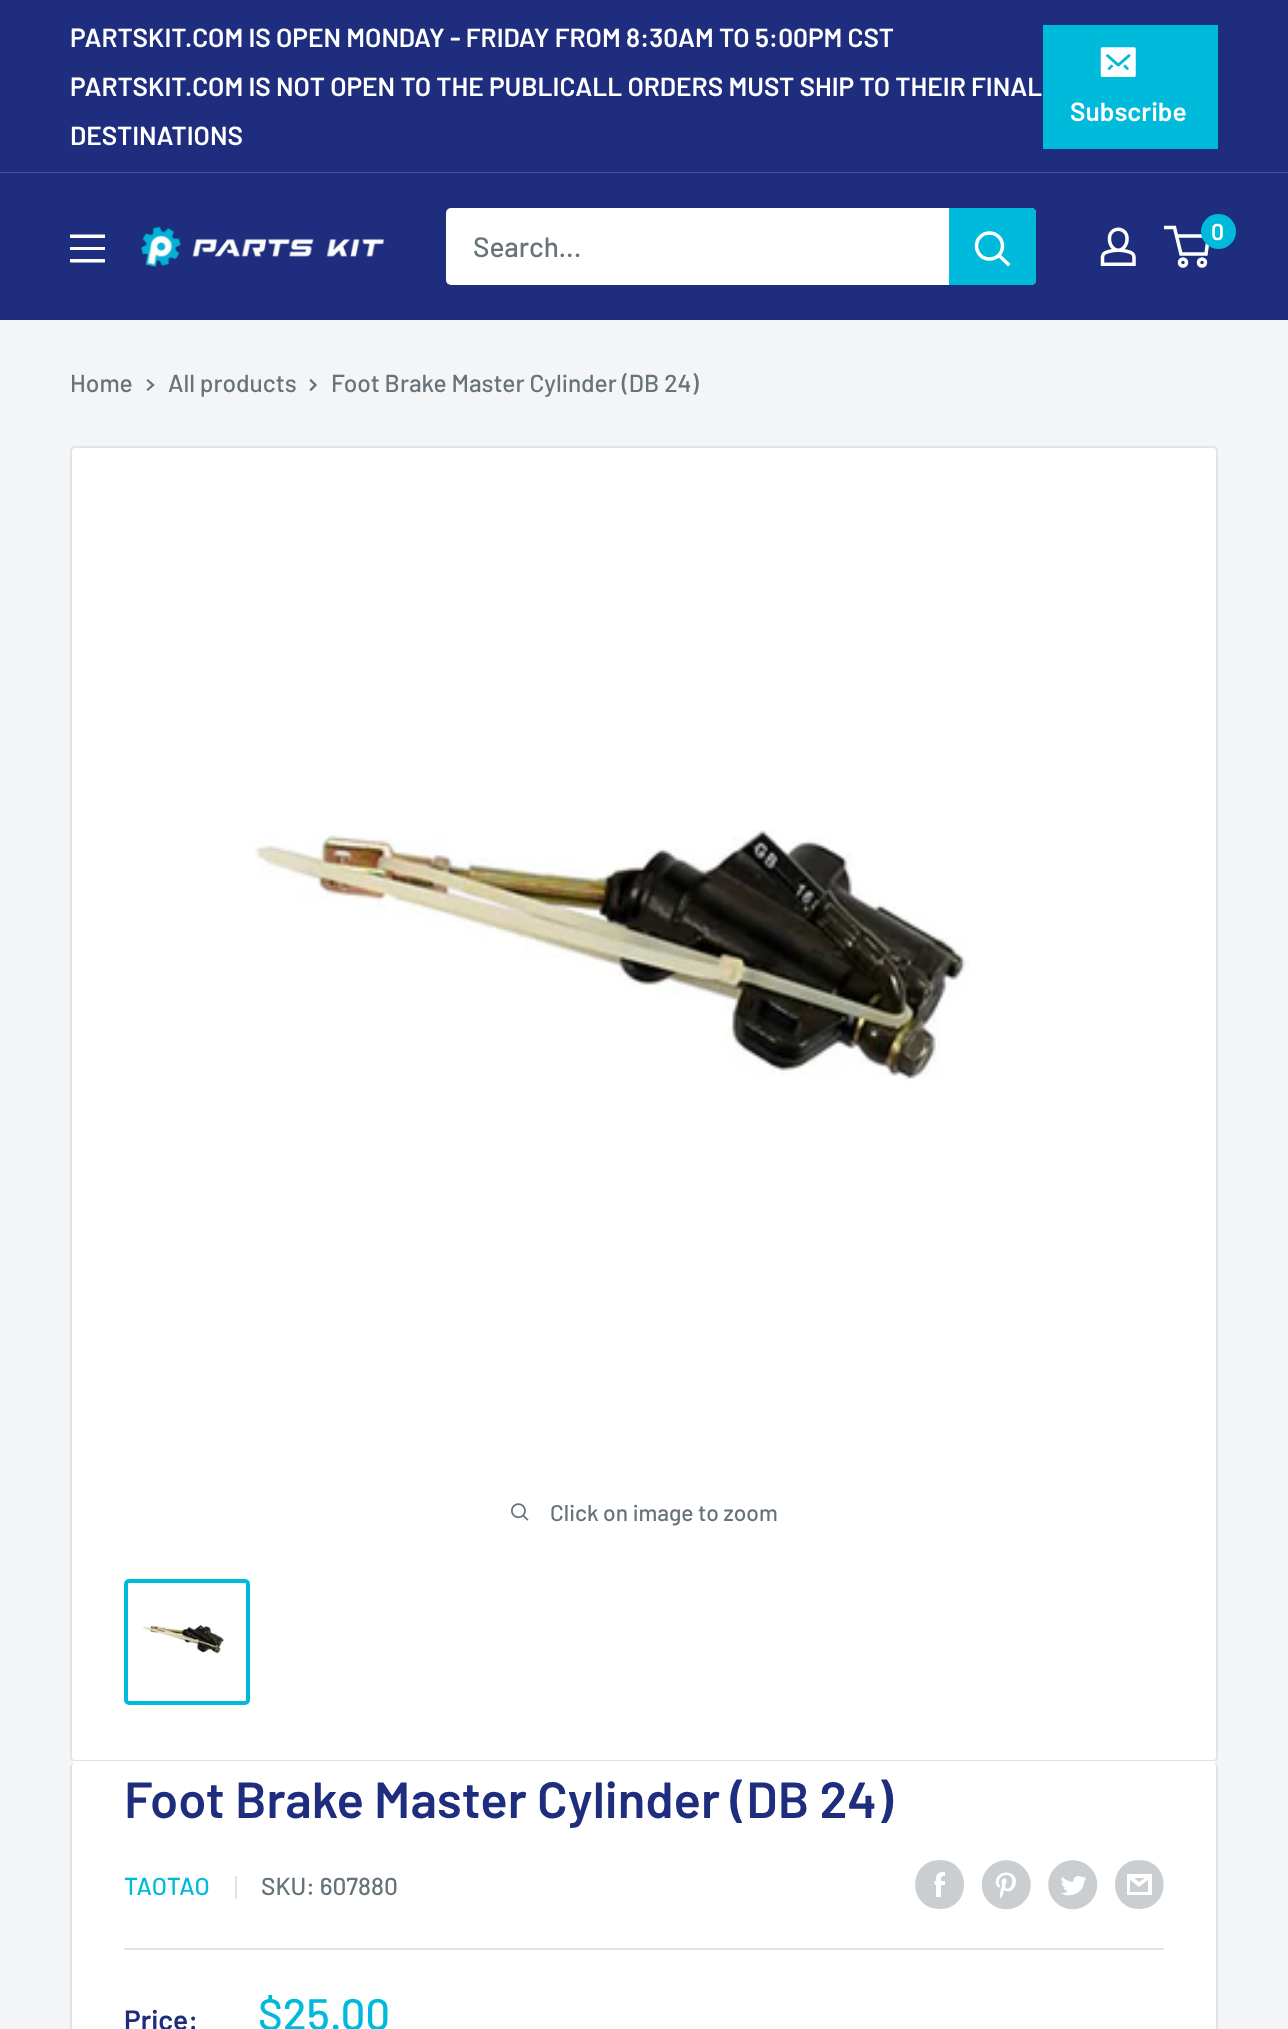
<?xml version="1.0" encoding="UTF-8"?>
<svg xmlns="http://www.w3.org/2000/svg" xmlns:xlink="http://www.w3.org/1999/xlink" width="1288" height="2029">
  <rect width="100%" height="100%" fill="#f3f5f6" />
  <rect width="1288" height="172" fill="#1e2d7d" />
  <rect y="172" width="1288" height="1" fill="#46549f" />
  <rect x="1043" y="25" width="175" height="124" fill="#00badb" />
  <image x="1100" y="47" width="36" height="30" xlink:href="image1.png" />
  <rect y="173" width="1288" height="147" fill="#1e2d7d" />
  <path d="M 70 259 h 35 v 3.5 h -35 z m 0 -24.5 h 35 v 3.5 h -35 z m 0 12.5 h 35 v 3 h -35 z" fill="#ffffff" fill-rule="evenodd" />
  <image x="141" y="226" width="244" height="41" xlink:href="image2.png" />
  <rect x="446" y="208" width="590" height="77" rx="5" fill="#ffffff" />
  <path d="M 949 208 h 82 c 3 0 5 2 5 5 v 67 c 0 3 -2 5 -5 5 h -82 z" fill="#00badb" />
  <path d="M 1008 264 l -9 -8.5" fill="none" stroke="#ffffff" stroke-width="3.5" stroke-linecap="square" />
  <circle cx="989.5" cy="246" r="13" fill="none" stroke="#ffffff" stroke-width="3.5" />
  <image x="1100" y="227" width="36" height="39" xlink:href="image3.png" />
  <circle cx="1183" cy="262.5" r="3.5" fill="none" stroke="#ffffff" stroke-width="3.5" />
  <circle cx="1202" cy="262.5" r="3.5" fill="none" stroke="#ffffff" stroke-width="3.5" />
  <path d="M 1176.5 236 h 32 l -2.5 18 h -25 l -6.5 -26.5 h -10.5" fill="none" stroke="#ffffff" stroke-width="3.5" />
  <circle cx="1218.5" cy="231.5" r="17.5" fill="#00badb" />
  <path d="M 148 380.5 l 5 4.5 l -5 4.5" fill="none" stroke="#677279" stroke-width="2.3" stroke-linecap="square" />
  <path d="M 311 380.5 l 4.5 4.5 l -4.5 4.5" fill="none" stroke="#677279" stroke-width="2.3" stroke-linecap="square" />
  <rect x="71" y="447" width="1146" height="1314" rx="4" fill="#ffffff" stroke="#e1e3e4" stroke-width="2" />
  <image x="253" y="830" width="717" height="251" xlink:href="image4.png" />
  <image x="511" y="1503" width="18" height="18" xlink:href="image5.png" />
  <rect x="126" y="1581" width="122" height="122" rx="3" fill="none" stroke="#00badb" stroke-width="4" />
  <image x="142" y="1624" width="82" height="30" xlink:href="image6.png" />
  <path d="M 75 1761 c -4 0 -5 3 -5 7 c 0 -3 2 -6 5 -6 h 1138 c 3 0 5 3 5 6 c 0 -4 -1 -7 -5 -7 z" fill="#ffffff" />
  <rect x="70" y="1762" width="1148" height="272" rx="5" fill="#ffffff" />
  <path d="M 75 1762 h 1138 c 3 0 5 3 5 6 v 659 c 0 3 -2 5 -5 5 h -1138 c -3 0 -5 -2 -5 -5 v -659 c 0 -3 2 -6 5 -6 z m 0 0 h 1138 c 2 0 3 3 3 6 v 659 c 0 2 -1 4 -3 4 h -1138 c -2 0 -3 -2 -3 -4 v -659 c 0 -3 1 -6 3 -6 z" fill="#e1e3e4" fill-rule="evenodd" />
  <rect x="235" y="1876" width="2" height="23" fill="#e1e3e4" />
  <path d="M 940 1909 c -33 0 -33 -49 0 -49 c 32 0 32 49 0 49 z m 5 -28 h -4 c 0 -4 0 -5 4 -5 v -4 c -8 0 -9 2 -9 9 h -2 l 1 4 h 1 v 12 h 5 v -12 h 4 z" fill="#caced0" fill-rule="evenodd" />
  <image x="981" y="1860" width="50" height="50" xlink:href="image7.png" />
  <image x="1048" y="1860" width="50" height="50" xlink:href="image8.png" />
  <path d="M 1139 1909 c -32 0 -32 -49 0 -49 c 33 0 33 49 0 49 z m -5 -31 h 11 l -6 4 z m 14 2 v 12 h -18 v -12 l 9 7 z m 4 -6 h -25 v 21 h 25 z" fill="#caced0" />
  <rect x="124" y="1948" width="1040" height="2" fill="#e1e3e4" />
  <text x="70" y="47" style="font-family: Barlow; font-size: 26.25px; font-weight: 600; fill: #ffffff">PARTSKIT.COM IS OPEN MONDAY - FRIDAY FROM 8:30AM TO 5:00PM CST</text>
  <text x="70" y="96" style="font-family: Barlow; font-size: 26.25px; font-weight: 600; fill: #ffffff">PARTSKIT.COM IS NOT OPEN TO THE PUBLICALL ORDERS MUST SHIP TO THEIR FINAL</text>
  <text x="70" y="145" style="font-family: Barlow; font-size: 26.25px; font-weight: 600; fill: #ffffff">DESTINATIONS</text>
  <text x="1070" y="121" style="font-family: Barlow; font-size: 26.25px; font-weight: 600; fill: #ffffff">Subscribe</text>
  <text x="473" y="257" style="font-family: Barlow; font-size: 28px; font-weight: 500; fill: #677279">Search...</text>
  <text x="1211" y="240" style="font-family: Barlow; font-size: 23px; font-weight: 600; fill: #ffffff">0</text>
  <text x="70" y="392" style="font-family: Barlow; font-size: 24.5px; font-weight: 500; fill: #677279">Home</text>
  <text x="168" y="392" style="font-family: Barlow; font-size: 24.5px; font-weight: 500; fill: #677279">All products</text>
  <text x="331" y="392" style="font-family: Barlow; font-size: 24.5px; font-weight: 500; fill: #677279">Foot Brake Master Cylinder (DB 24)</text>
  <text x="550" y="1521" style="font-family: Barlow; font-size: 22.75px; font-weight: 500; fill: #677279">Click on image to zoom</text>
  <text x="124" y="1818" style="font-family: Barlow; font-size: 50.75px; font-weight: 600; fill: #1e2d7d">Foot Brake Master Cylinder (DB 24)</text>
  <text x="124" y="1895" style="font-family: Barlow; font-size: 24.5px; font-weight: 500; fill: #00badb">TAOTAO</text>
  <text x="261" y="1895" style="font-family: Barlow; font-size: 24.5px; font-weight: 500; fill: #677279">SKU: 607880</text>
  <text x="124" y="2030" style="font-family: Barlow; font-size: 28px; font-weight: 600; fill: #1e2d7d">Price:</text>
  <text x="258" y="2030" style="font-family: Barlow; font-size: 44px; font-weight: 500; fill: #00badb">$25.00</text>
</svg>
